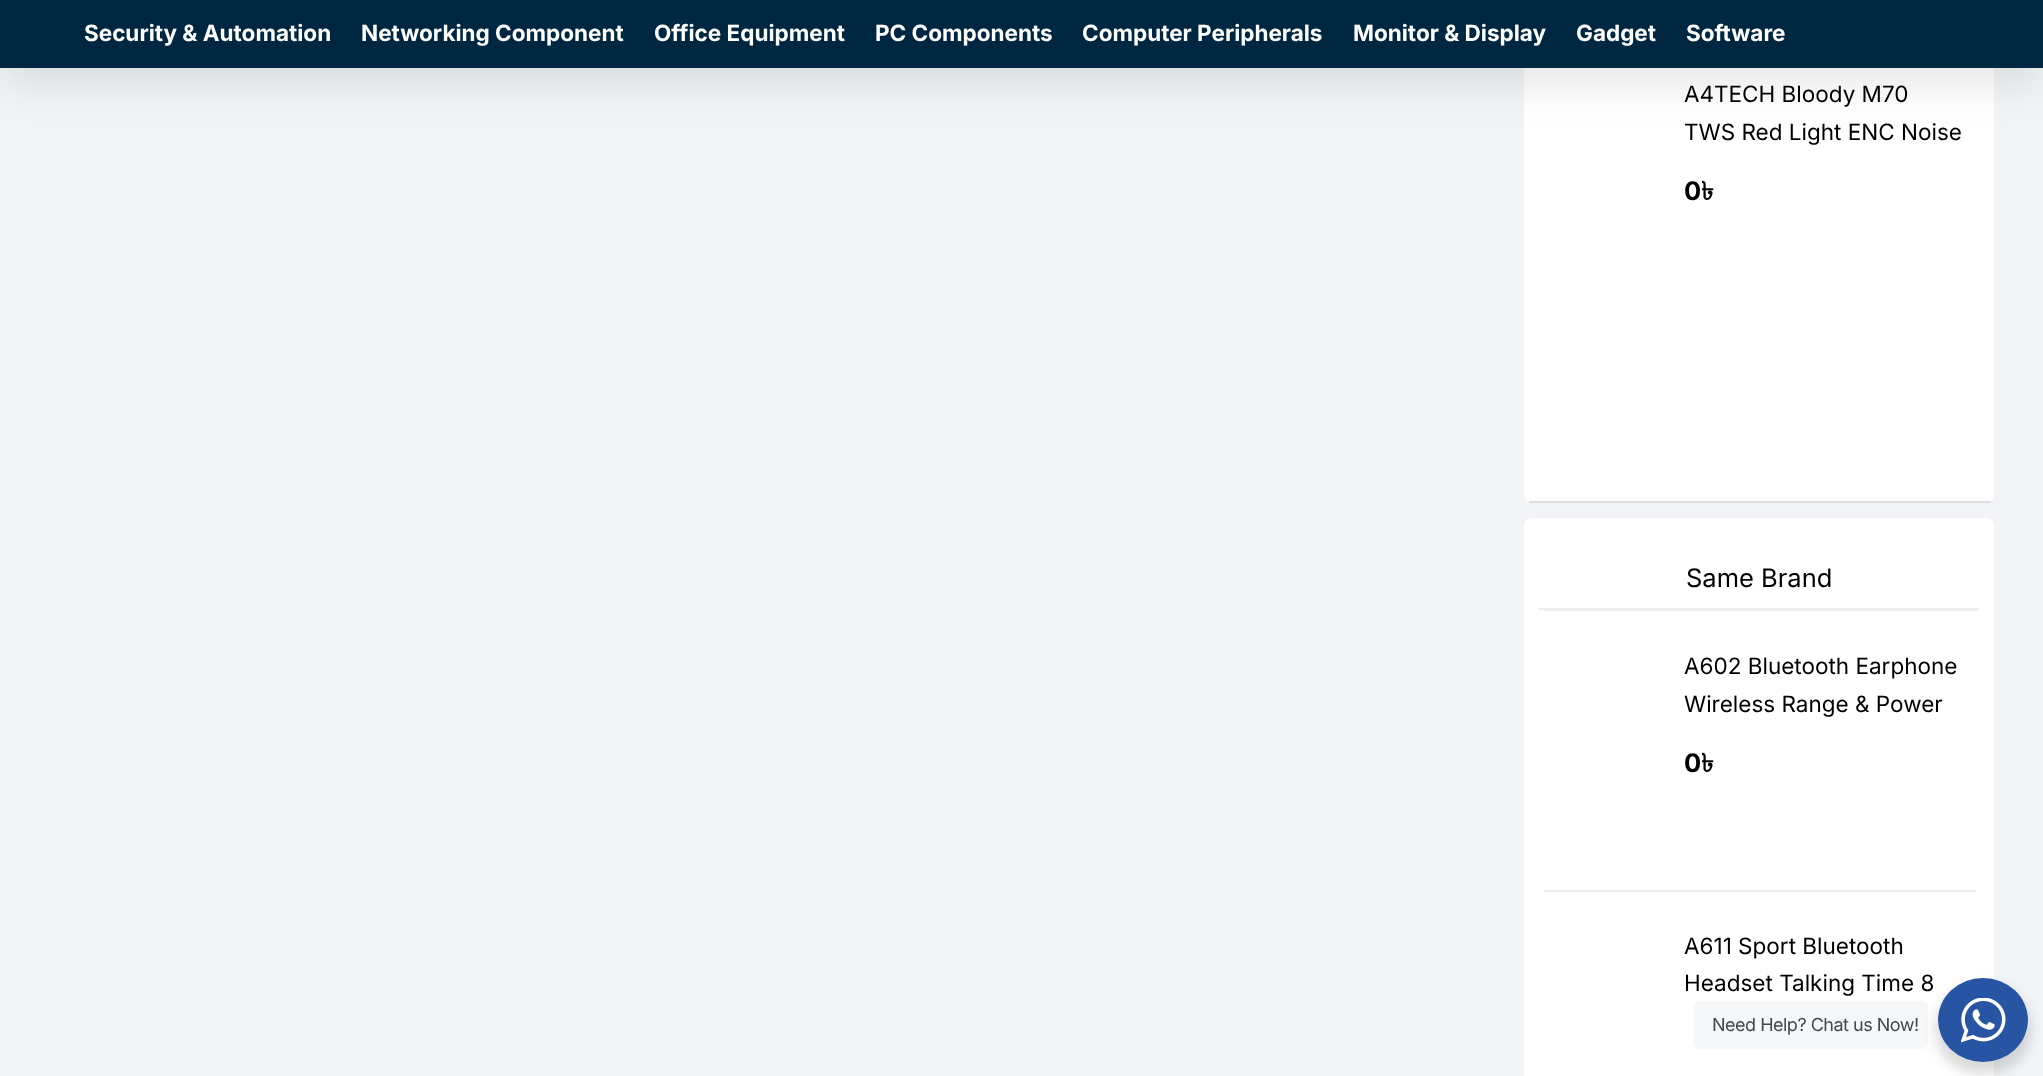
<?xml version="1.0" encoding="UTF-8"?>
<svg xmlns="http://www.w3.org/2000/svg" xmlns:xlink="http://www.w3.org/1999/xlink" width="2043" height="1076">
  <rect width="100%" height="100%" fill="#f2f4f8" />
  <rect x="1524" y="-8" width="470" height="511" rx="8" fill="#ffffff" />
  <rect y="15" width="2043" height="68" fill="#000000" fill-opacity="0.1" filter="blur(22.5px)" />
  <rect width="2043" height="68" fill="#002741" />
  <rect x="1529" y="501" width="462" height="2" fill="#dddddd" />
  <rect x="1524" y="518" width="470" height="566" rx="8" fill="#ffffff" />
  <rect x="1539" y="608" width="440" height="2" fill="#eeeeee" />
  <rect x="1544" y="610" width="432" height="1" fill="#eeeeee" />
  <rect x="1544" y="890" width="432" height="2" fill="#eeeeee" />
  <rect x="1694" y="1001" width="234" height="48" rx="6" fill="#f5f7f9" />
  <rect x="1935" y="984" width="96" height="90" rx="45" fill="#000000" fill-opacity="0.14" filter="blur(6px)" />
  <ellipse cx="1983" cy="1020" rx="45" ry="42" fill="#2855a3" />
  <image x="1961" y="998" width="45" height="45" xlink:href="image1.png" />
  <text x="84" y="41" style="font-family: Inter; font-size: 22.5px; font-weight: bold; fill: #ffffff">Security &amp; Automation</text>
  <text x="361" y="41" style="font-family: Inter; font-size: 22.5px; font-weight: bold; fill: #ffffff">Networking Component</text>
  <text x="654" y="41" style="font-family: Inter; font-size: 22.5px; font-weight: bold; fill: #ffffff">Office Equipment</text>
  <text x="875" y="41" style="font-family: Inter; font-size: 22.5px; font-weight: bold; fill: #ffffff">PC Components</text>
  <text x="1082" y="41" style="font-family: Inter; font-size: 22.5px; font-weight: bold; fill: #ffffff">Computer Peripherals</text>
  <text x="1353" y="41" style="font-family: Inter; font-size: 22.5px; font-weight: bold; fill: #ffffff">Monitor &amp; Display</text>
  <text x="1576" y="41" style="font-family: Inter; font-size: 22.5px; font-weight: bold; fill: #ffffff">Gadget</text>
  <text x="1686" y="41" style="font-family: Inter; font-size: 22.5px; font-weight: bold; fill: #ffffff">Software</text>
  <text x="1684" y="102" style="font-family: Inter; font-size: 22.5px; fill: #000000">A4TECH Bloody M70</text>
  <text x="1684" y="140" style="font-family: Inter; font-size: 22.5px; fill: #000000">TWS Red Light ENC Noise</text>
  <text x="1684" y="200" style="font-family: Inter; font-size: 25.5px; font-weight: bold; fill: #000000">0</text>
  <text x="1701" y="200" style="font-family: Lohit Bengali; font-size: 25.5px; font-weight: bold; fill: #000000">৳</text>
  <text x="1686" y="587" style="font-family: Inter; font-size: 25.5px; fill: #000000">Same Brand</text>
  <text x="1684" y="674" style="font-family: Inter; font-size: 22.5px; fill: #000000">A602 Bluetooth Earphone</text>
  <text x="1684" y="712" style="font-family: Inter; font-size: 22.5px; fill: #000000">Wireless Range &amp; Power</text>
  <text x="1684" y="772" style="font-family: Inter; font-size: 25.5px; font-weight: bold; fill: #000000">0</text>
  <text x="1701" y="772" style="font-family: Lohit Bengali; font-size: 25.5px; font-weight: bold; fill: #000000">৳</text>
  <text x="1684" y="954" style="font-family: Inter; font-size: 22.5px; fill: #000000">A611 Sport Bluetooth</text>
  <text x="1684" y="991" style="font-family: Inter; font-size: 22.5px; fill: #000000">Headset Talking Time 8</text>
  <text x="1712" y="1031" style="font-family: Inter; font-size: 18px; letter-spacing: -0.5px; fill: #43474e">Need Help? Chat us Now!</text>
</svg>
